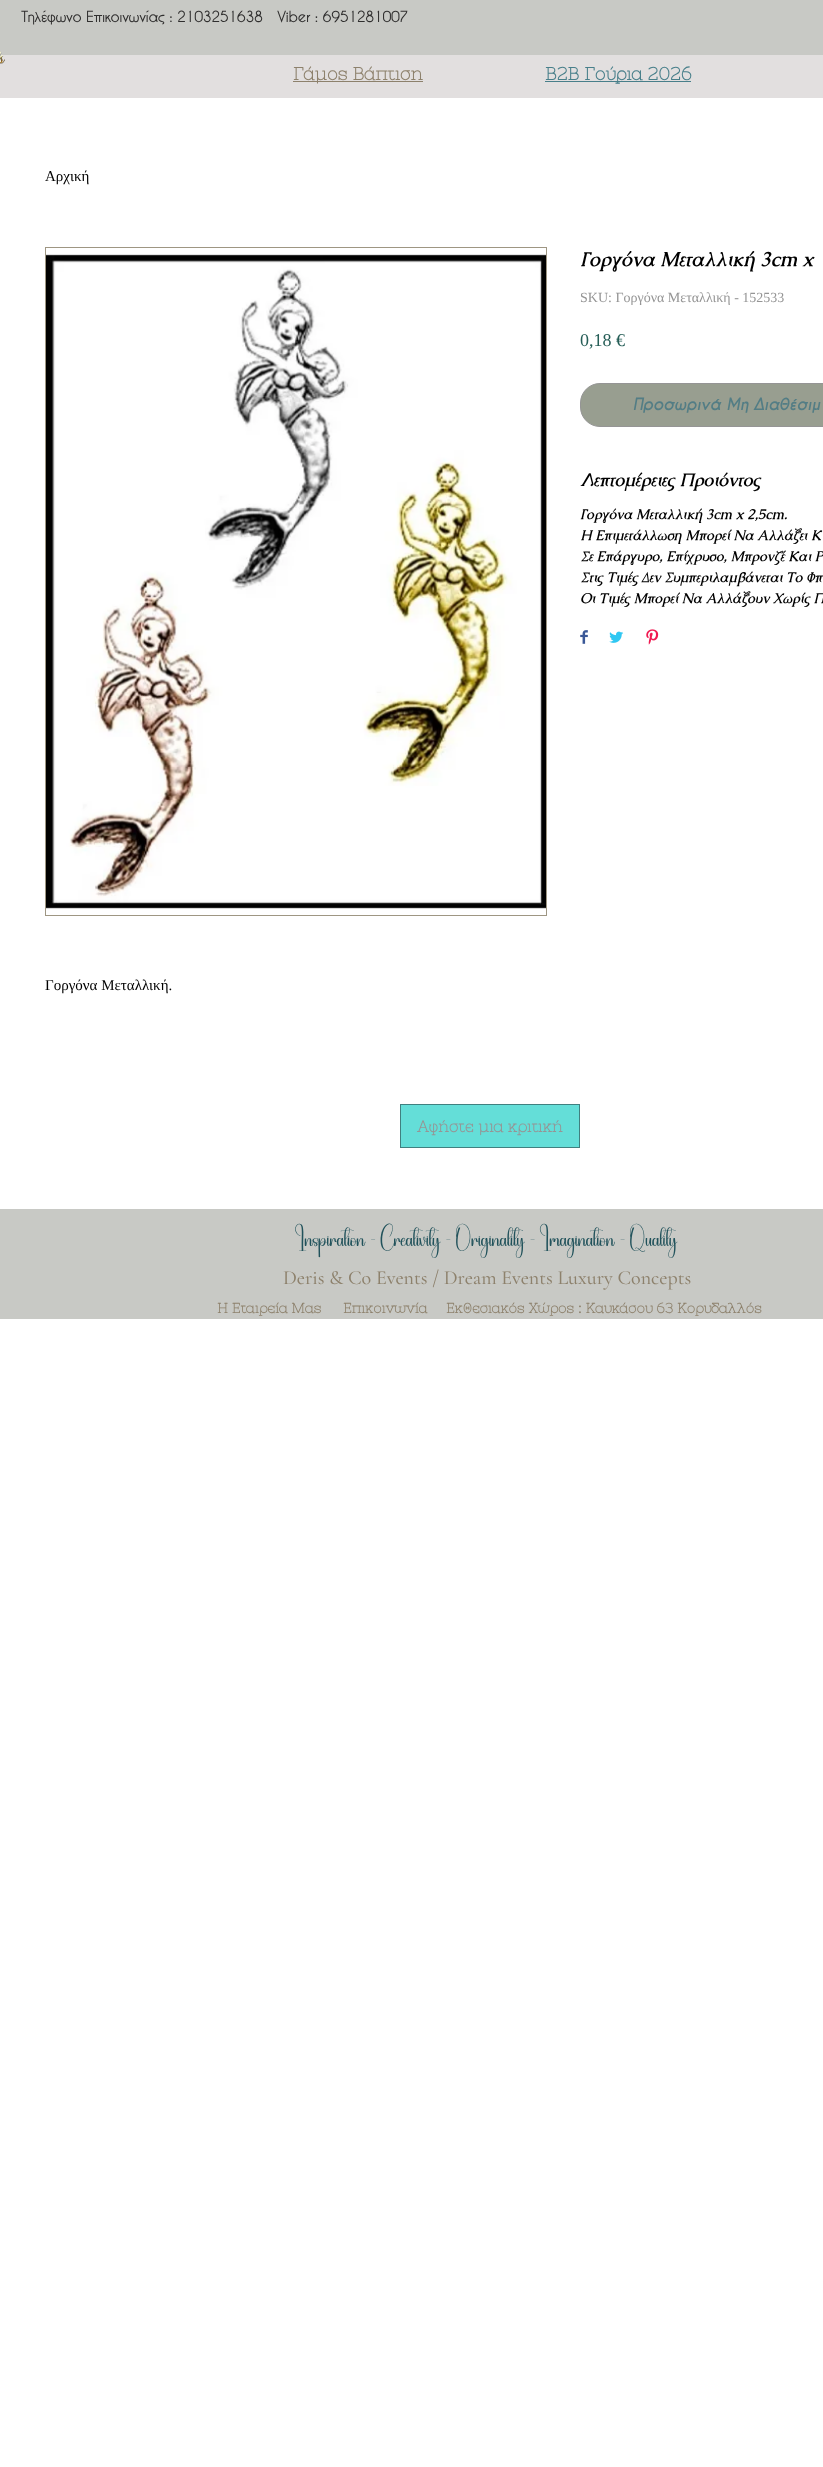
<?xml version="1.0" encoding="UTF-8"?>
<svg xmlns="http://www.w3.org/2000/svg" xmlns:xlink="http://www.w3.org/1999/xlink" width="823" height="2467">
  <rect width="100%" height="100%" fill="#ffffff" />
  <rect width="823" height="55" fill="#c8c9c5" />
  <rect y="55" width="823" height="43" fill="#e2dfdf" />
  <image x="0" y="51" width="5" height="13" xlink:href="image1.png" />
  <rect x="293" y="81" width="130" height="1" fill="#8d816c" />
  <rect x="545" y="81" width="146" height="1" fill="#487f8a" />
  <rect x="580.5" y="383.5" width="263" height="43" rx="19.5" fill="#989e90" stroke="#959595" />
  <image x="580" y="630" width="8" height="14" xlink:href="image2.png" />
  <image x="609" y="631" width="15" height="12" xlink:href="image3.png" />
  <image x="646" y="629" width="13" height="16" xlink:href="image4.png" />
  <rect x="45.5" y="247.5" width="501" height="668" fill="none" stroke="#9e9683" />
  <image x="46" y="254" width="500" height="655" xlink:href="image5.png" />
  <rect x="400.5" y="1104.5" width="179" height="43" fill="#64ded8" stroke="#408080" />
  <rect y="1209" width="823" height="110" fill="#c8c9c5" />
  <text x="21" y="22" style="font-family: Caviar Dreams; font-size: 14px; font-weight: bold; fill: #2f2e2e" xml:space="preserve">Τηλέφωνο Επικοινωνίας : 2103251638   Viber : 6951281007</text>
  <text x="293" y="80" style="font-family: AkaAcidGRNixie; font-size: 18px; font-weight: bold; fill: #8d816c">Γάμος Βάπτιση</text>
  <text x="545" y="80" style="font-family: AkaAcidGRNixie; font-size: 18px; font-weight: bold; fill: #487f8a">B2B Γούρια 2026</text>
  <text x="45" y="181" style="font-family: Liberation Serif; font-size: 15px; fill: #000000">Αρχική</text>
  <text x="580" y="266" style="font-family: Caudex; font-size: 20px; font-weight: bold; font-style: italic; fill: #000000">Γοργόνα Μεταλλική 3cm x</text>
  <text x="580" y="302" style="font-family: Liberation Serif; font-size: 14px; fill: #959595">SKU: Γοργόνα Μεταλλική - 152533</text>
  <text x="580" y="346" style="font-family: Liberation Serif; font-size: 18px; fill: #265e57">0,18 €</text>
  <text x="633" y="410" style="font-family: Caviar Dreams; font-size: 16px; font-weight: bold; font-style: italic; fill: #537d85">Προσωρινά Μη Διαθέσιμ</text>
  <text x="580" y="486" style="font-family: Caudex; font-size: 18px; font-weight: bold; font-style: italic; fill: #000000">Λεπτομέρειες Προιόντος</text>
  <text x="580" y="519" style="font-family: Caudex; font-size: 14px; font-weight: bold; font-style: italic; fill: #000000">Γοργόνα Μεταλλική 3cm x 2,5cm.</text>
  <text x="580" y="540" style="font-family: Caudex; font-size: 14px; font-weight: bold; font-style: italic; fill: #000000">Η Επιμετάλλωση Μπορεί Να Αλλάξει Κ</text>
  <text x="580" y="561" style="font-family: Caudex; font-size: 14px; font-weight: bold; font-style: italic; fill: #000000">Σε Επάργυρο, Επίχρυσο, Μπρονζέ Και Ρ</text>
  <text x="580" y="582" style="font-family: Caudex; font-size: 14px; font-weight: bold; font-style: italic; fill: #000000">Στις Τιμές Δεν Συμπεριλαμβάνεται Το Φπ</text>
  <text x="580" y="603" style="font-family: Caudex; font-size: 14px; font-weight: bold; font-style: italic; fill: #000000">Οι Τιμές Μπορεί Να Αλλάξουν Χωρίς Π</text>
  <text x="45" y="990" style="font-family: Liberation Serif; font-size: 15px; fill: #000000">Γοργόνα Μεταλλική.</text>
  <text x="417" y="1132" style="font-family: AkaAcidGRNixie; font-size: 16px; font-weight: bold; fill: #959595">Αφήστε μια κριτική</text>
  <text x="296" y="1246" style="font-family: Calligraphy; font-size: 20px; fill: #21525b">Inspiration - Creativity - Originality - Imagination - Quality</text>
  <text x="283" y="1284" style="font-family: Cormorant Garamond; font-size: 20px; font-weight: 500; fill: #8d816c">Deris &amp; Co Events / Dream Events Luxury Concepts</text>
  <text x="217" y="1313" style="font-family: AkaAcidGRNixie; font-size: 14px; font-weight: bold; fill: #8d816c">Η Εταιρεία Μας</text>
  <text x="343" y="1313" style="font-family: AkaAcidGRNixie; font-size: 14px; font-weight: bold; fill: #8d816c">Επικοινωνία</text>
  <text x="446" y="1313" style="font-family: AkaAcidGRNixie; font-size: 14px; font-weight: bold; fill: #8d816c">Εκθεσιακός Χώρος : Καυκάσου 63 Κορυδαλλός</text>
</svg>
